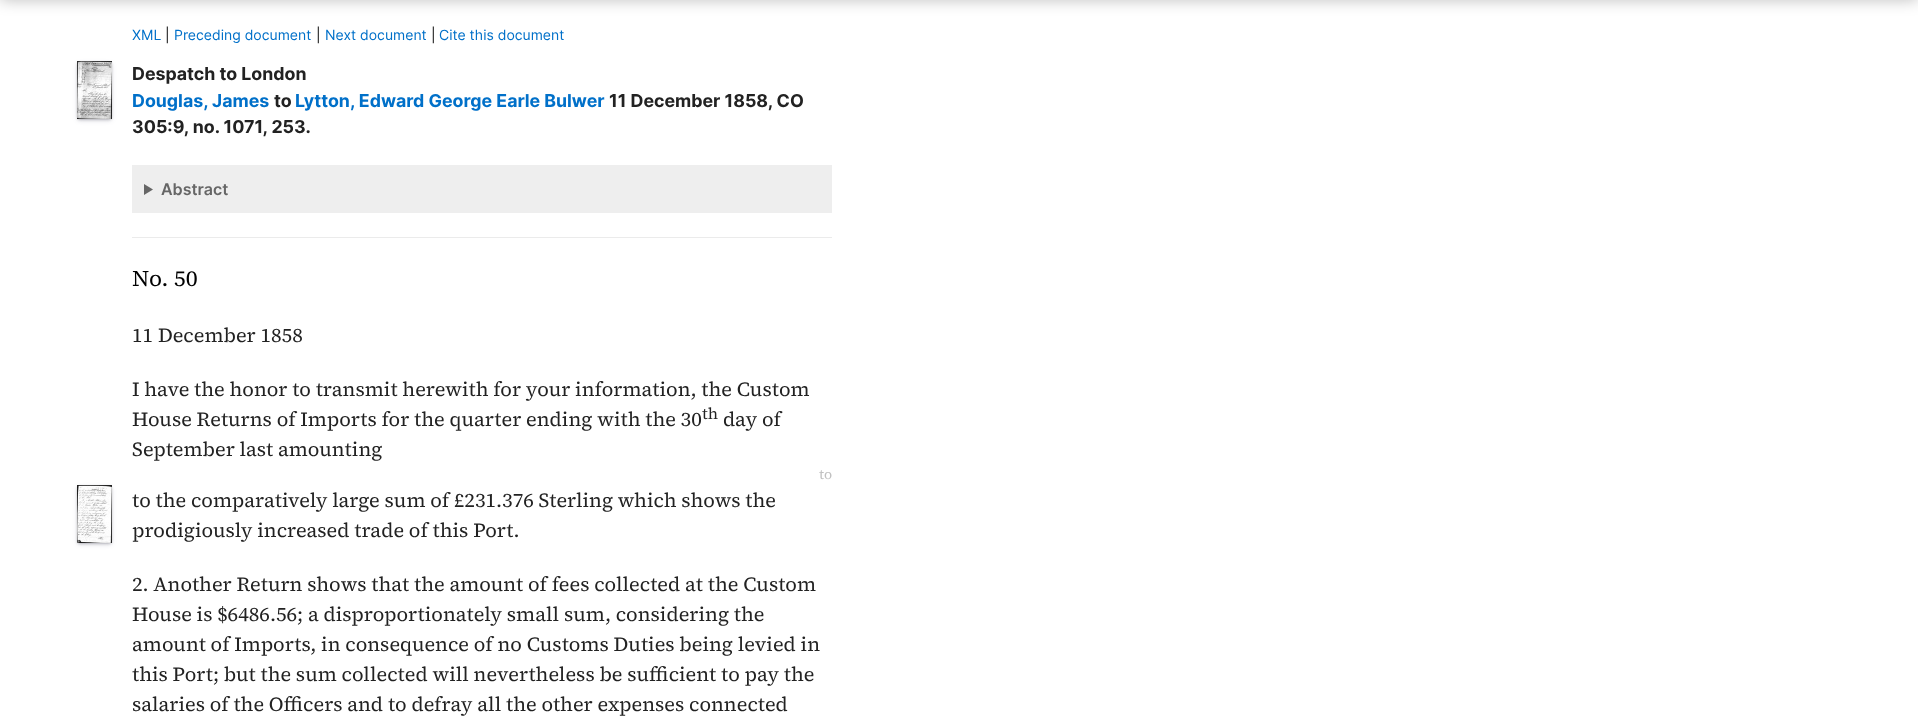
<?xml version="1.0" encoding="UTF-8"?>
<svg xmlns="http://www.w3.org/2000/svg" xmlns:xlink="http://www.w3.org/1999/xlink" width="1918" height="723">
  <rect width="100%" height="100%" fill="#ffffff" />
  <rect y="-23" width="1918" height="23" fill="#000000" fill-opacity="0.25" filter="blur(7.5px)" />
  <rect x="132" y="237" width="700" height="1" fill="#ebebeb" />
  <rect x="78" y="63" width="33" height="56" fill="#000000" fill-opacity="0.3" filter="blur(1.5px)" />
  <rect x="78" y="64" width="33" height="56" fill="#32325d" fill-opacity="0.25" filter="blur(2.5px)" />
  <image x="77" y="61" width="35" height="58" xlink:href="image1.png" />
  <rect x="132" y="165" width="700" height="48" fill="#eeeeee" />
  <path d="M 144 184 l 9 5.5 l -9 5.5 z" fill="#666666" />
  <rect x="78" y="487" width="33" height="56" fill="#000000" fill-opacity="0.3" filter="blur(1.5px)" />
  <rect x="78" y="488" width="33" height="56" fill="#32325d" fill-opacity="0.25" filter="blur(2.5px)" />
  <image x="77" y="485" width="35" height="58" xlink:href="image2.png" />
  <text x="132" y="40" style="font-family: Inter; font-size: 14px; fill: #0070c9">XML</text>
  <text x="165" y="40" style="font-family: Inter; font-size: 14px; fill: #000000">|</text>
  <text x="174" y="40" style="font-family: Inter; font-size: 14px; fill: #0070c9">Preceding document</text>
  <text x="316" y="40" style="font-family: Inter; font-size: 14px; fill: #000000">|</text>
  <text x="325" y="40" style="font-family: Inter; font-size: 14px; fill: #0070c9">Next document</text>
  <text x="431" y="40" style="font-family: Inter; font-size: 14px; fill: #000000">|</text>
  <text x="439" y="40" style="font-family: Inter; font-size: 14px; fill: #0070c9">Cite this document</text>
  <text x="132" y="80" style="font-family: Inter; font-size: 17.75px; font-weight: bold; fill: #222222">Despatch to London</text>
  <text x="132" y="107" style="font-family: Inter; font-size: 17.75px; font-weight: bold; fill: #0070c9">Douglas, James</text>
  <text x="274" y="107" style="font-family: Inter; font-size: 17.75px; font-weight: bold; fill: #222222">to</text>
  <text x="295" y="107" style="font-family: Inter; font-size: 17.75px; font-weight: bold; fill: #0070c9">Lytton, Edward George Earle Bulwer</text>
  <text x="609" y="107" style="font-family: Inter; font-size: 17.75px; font-weight: bold; fill: #222222">11 December 1858, CO</text>
  <text x="132" y="133" style="font-family: Inter; font-size: 17.75px; font-weight: bold; fill: #222222">305:9, no. 1071, 253.</text>
  <text x="161" y="195" style="font-family: Inter; font-size: 16px; font-weight: 600; fill: #666666">Abstract</text>
  <text x="132" y="286" style="font-family: 'Source Serif 4'; font-size: 22.5px; fill: #000000">No. 50</text>
  <text x="132" y="342" style="font-family: 'Source Serif 4'; font-size: 20px; fill: #222222">11 December 1858</text>
  <text x="132" y="396" style="font-family: 'Source Serif 4'; font-size: 20px; fill: #222222">I have the honor to transmit herewith for your information, the Custom</text>
  <text x="132" y="426" style="font-family: 'Source Serif 4'; font-size: 20px; fill: #222222">House Returns of Imports for the quarter ending with the 30</text>
  <text x="702" y="419" style="font-family: 'Source Serif 4'; font-size: 16px; fill: #222222">th</text>
  <text x="723" y="426" style="font-family: 'Source Serif 4'; font-size: 20px; fill: #222222">day of</text>
  <text x="132" y="456" style="font-family: 'Source Serif 4'; font-size: 20px; fill: #222222">September last amounting</text>
  <text x="819" y="479" style="font-family: 'Source Serif 4'; font-size: 14px; fill: #c0c0c0">to</text>
  <text x="132" y="507" style="font-family: 'Source Serif 4'; font-size: 20px; fill: #222222">to the comparatively large sum of £231.376 Sterling which shows the</text>
  <text x="132" y="537" style="font-family: 'Source Serif 4'; font-size: 20px; fill: #222222">prodigiously increased trade of this Port.</text>
  <text x="132" y="591" style="font-family: 'Source Serif 4'; font-size: 20px; fill: #222222">2. Another Return shows that the amount of fees collected at the Custom</text>
  <text x="132" y="621" style="font-family: 'Source Serif 4'; font-size: 20px; fill: #222222">House is $6486.56; a disproportionately small sum, considering the</text>
  <text x="132" y="651" style="font-family: 'Source Serif 4'; font-size: 20px; fill: #222222">amount of Imports, in consequence of no Customs Duties being levied in</text>
  <text x="132" y="681" style="font-family: 'Source Serif 4'; font-size: 20px; fill: #222222">this Port; but the sum collected will nevertheless be sufficient to pay the</text>
  <text x="132" y="711" style="font-family: 'Source Serif 4'; font-size: 20px; fill: #222222">salaries of the Officers and to defray all the other expenses connected</text>
</svg>
